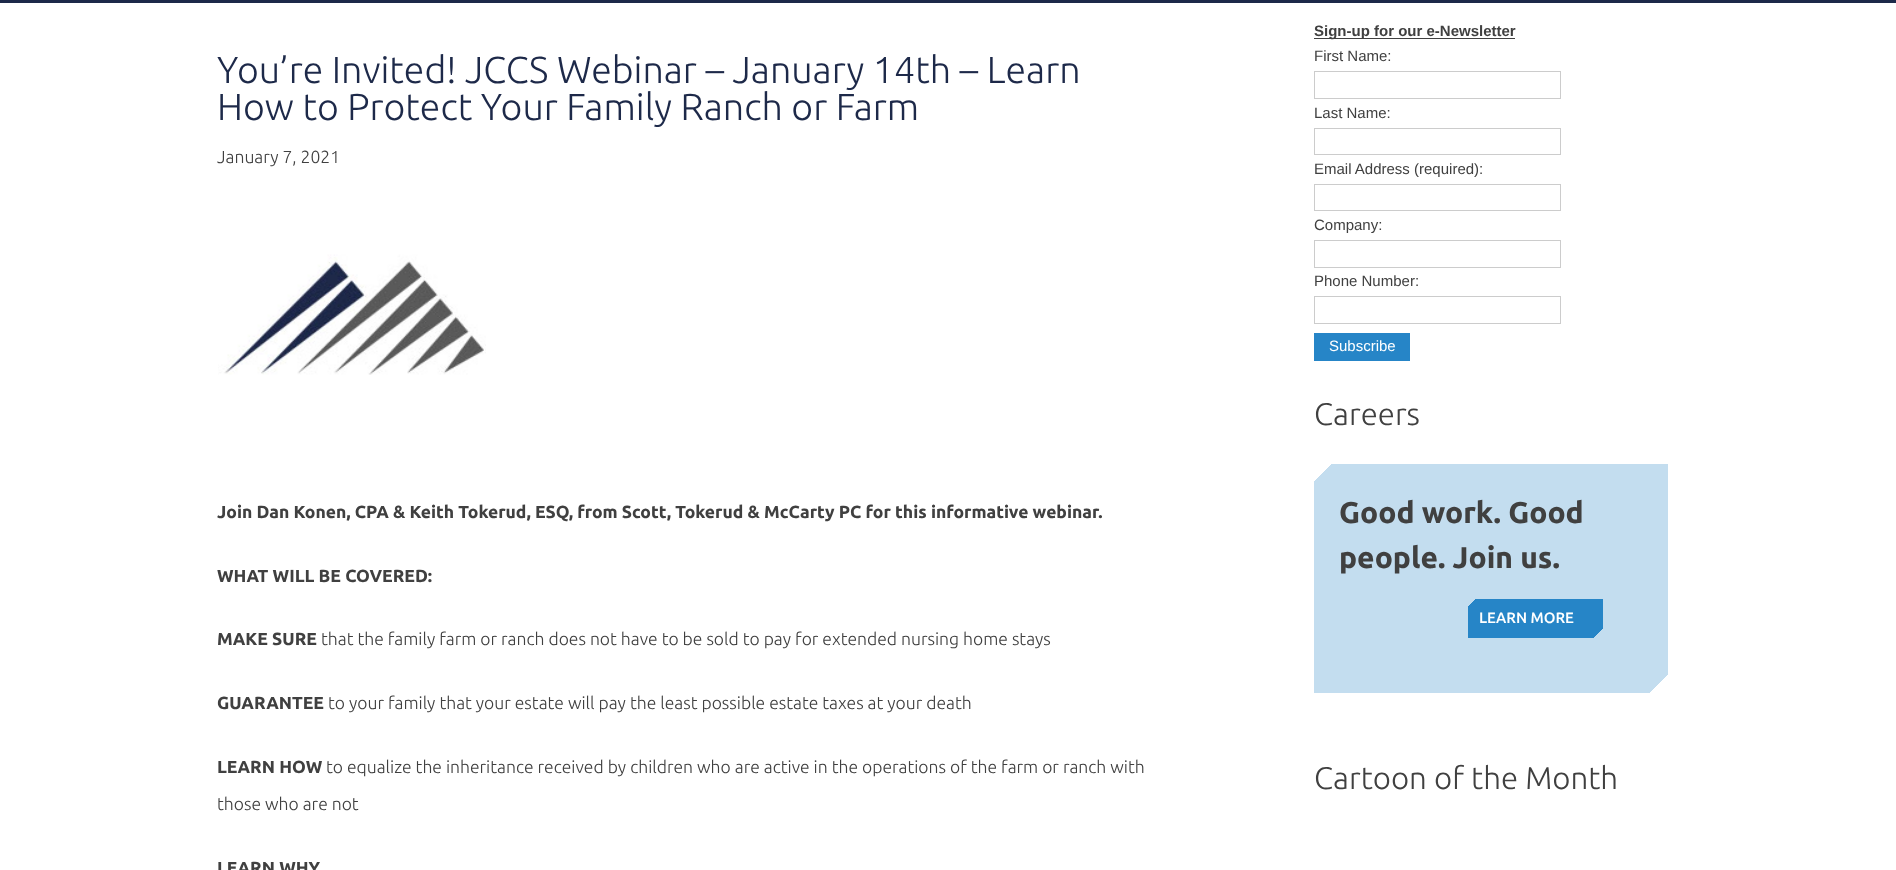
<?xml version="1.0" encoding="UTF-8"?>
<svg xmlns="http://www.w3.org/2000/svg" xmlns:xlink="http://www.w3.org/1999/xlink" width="1896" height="870">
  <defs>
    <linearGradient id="g1" gradientUnits="userSpaceOnUse" x1="1330" y1="448" x2="1478" y2="596"><stop offset="0.06" stop-color="#ffffff" /><stop offset="0.06" stop-color="#c3ddef" /></linearGradient>
    <linearGradient id="g2" gradientUnits="userSpaceOnUse" x1="1652" y1="708" x2="1503" y2="560"><stop offset="0.06" stop-color="#c3ddef" stop-opacity="0" /><stop offset="0.06" stop-color="#c3ddef" /></linearGradient>
    <linearGradient id="g3" gradientUnits="userSpaceOnUse" x1="1480" y1="586" x2="1525" y2="632"><stop offset="0.1" stop-color="#c3ddef" /><stop offset="0.1" stop-color="#2685c7" /></linearGradient>
    <linearGradient id="g4" gradientUnits="userSpaceOnUse" x1="1590" y1="650" x2="1545" y2="604"><stop offset="0.1" stop-color="#2685c7" stop-opacity="0" /><stop offset="0.1" stop-color="#2685c7" /></linearGradient>
  </defs>
  <rect width="100%" height="100%" fill="#ffffff" />
  <rect width="1896" height="3" fill="#1d2949" />
  <image x="218" y="254" width="268" height="121" xlink:href="image1.png" />
  <rect x="1314" y="38" width="201" height="1" fill="#404040" />
  <rect x="1314.5" y="71.5" width="246" height="27" fill="none" stroke="#cccccc" />
  <rect x="1314.5" y="128.5" width="246" height="26" fill="none" stroke="#cccccc" />
  <rect x="1314.5" y="184.5" width="246" height="26" fill="none" stroke="#cccccc" />
  <rect x="1314.5" y="240.5" width="246" height="27" fill="none" stroke="#cccccc" />
  <rect x="1314.5" y="296.5" width="246" height="27" fill="none" stroke="#cccccc" />
  <rect x="1314" y="333" width="96" height="28" fill="#2685c7" />
  <rect x="1314" y="464" width="174" height="112" fill="url(#g1)" />
  <rect x="1488" y="464" width="180" height="112" fill="#c3ddef" />
  <rect x="1494" y="576" width="174" height="117" fill="url(#g2)" />
  <rect x="1314" y="576" width="180" height="117" fill="#c3ddef" />
  <rect x="1468" y="599" width="65" height="17" fill="url(#g3)" />
  <rect x="1533" y="599" width="70" height="17" fill="#2685c7" />
  <rect x="1538" y="616" width="65" height="22" fill="url(#g4)" />
  <rect x="1468" y="616" width="70" height="22" fill="#2685c7" />
  <text x="217" y="83" style="font-family: Ubuntu; font-size: 37.5px; font-weight: 300; fill: #1d2949">You’re Invited! JCCS Webinar – January 14th – Learn</text>
  <text x="217" y="120" style="font-family: Ubuntu; font-size: 37.5px; font-weight: 300; fill: #1d2949">How to Protect Your Family Ranch or Farm</text>
  <text x="217" y="163" style="font-family: Ubuntu; font-size: 17.5px; font-weight: 300; fill: #404040">January 7, 2021</text>
  <text x="217" y="518" style="font-family: Ubuntu; font-size: 17.5px; font-weight: bold; fill: #404040">Join Dan Konen, CPA &amp; Keith Tokerud, ESQ, from Scott, Tokerud &amp; McCarty PC for this informative webinar.</text>
  <text x="217" y="582" style="font-family: Ubuntu; font-size: 17.5px; font-weight: bold; fill: #404040">WHAT WILL BE COVERED:</text>
  <text x="217" y="645" style="font-family: Ubuntu; font-size: 17.5px; font-weight: bold; fill: #404040">MAKE SURE</text>
  <text x="321" y="645" style="font-family: Ubuntu; font-size: 17.5px; font-weight: 300; fill: #404040">that the family farm or ranch does not have to be sold to pay for extended nursing home stays</text>
  <text x="217" y="709" style="font-family: Ubuntu; font-size: 17.5px; font-weight: bold; fill: #404040">GUARANTEE</text>
  <text x="328" y="709" style="font-family: Ubuntu; font-size: 17.5px; font-weight: 300; fill: #404040">to your family that your estate will pay the least possible estate taxes at your death</text>
  <text x="217" y="773" style="font-family: Ubuntu; font-size: 17.5px; font-weight: bold; fill: #404040">LEARN HOW</text>
  <text x="326" y="773" style="font-family: Ubuntu; font-size: 17.5px; font-weight: 300; fill: #404040">to equalize the inheritance received by children who are active in the operations of the farm or ranch with</text>
  <text x="217" y="810" style="font-family: Ubuntu; font-size: 17.5px; font-weight: 300; fill: #404040">those who are not</text>
  <text x="217" y="874" style="font-family: Ubuntu; font-size: 17.5px; font-weight: bold; fill: #404040">LEARN WHY</text>
  <text x="1314" y="36" style="font-family: Liberation Sans; font-size: 15px; font-weight: bold; fill: #404040">Sign-up for our e-Newsletter</text>
  <text x="1314" y="61" style="font-family: Liberation Sans; font-size: 15px; fill: #404040">First Name:</text>
  <text x="1314" y="118" style="font-family: Liberation Sans; font-size: 15px; fill: #404040">Last Name:</text>
  <text x="1314" y="174" style="font-family: Liberation Sans; font-size: 15px; fill: #404040">Email Address (required):</text>
  <text x="1314" y="230" style="font-family: Liberation Sans; font-size: 15px; fill: #404040">Company:</text>
  <text x="1314" y="286" style="font-family: Liberation Sans; font-size: 15px; fill: #404040">Phone Number:</text>
  <text x="1329" y="351" style="font-family: Liberation Sans; font-size: 15px; fill: #ffffff">Subscribe</text>
  <text x="1314" y="425" style="font-family: Ubuntu; font-size: 31.25px; font-weight: 300; fill: #404040">Careers</text>
  <text x="1339" y="523" style="font-family: Ubuntu; font-size: 30px; font-weight: bold; fill: #404040">Good work. Good</text>
  <text x="1339" y="568" style="font-family: Ubuntu; font-size: 30px; font-weight: bold; fill: #404040">people. Join us.</text>
  <text x="1479" y="623" style="font-family: Ubuntu; font-size: 15px; font-weight: 500; fill: #ffffff">LEARN MORE</text>
  <text x="1314" y="789" style="font-family: Ubuntu; font-size: 31.25px; font-weight: 300; fill: #404040">Cartoon of the Month</text>
</svg>
